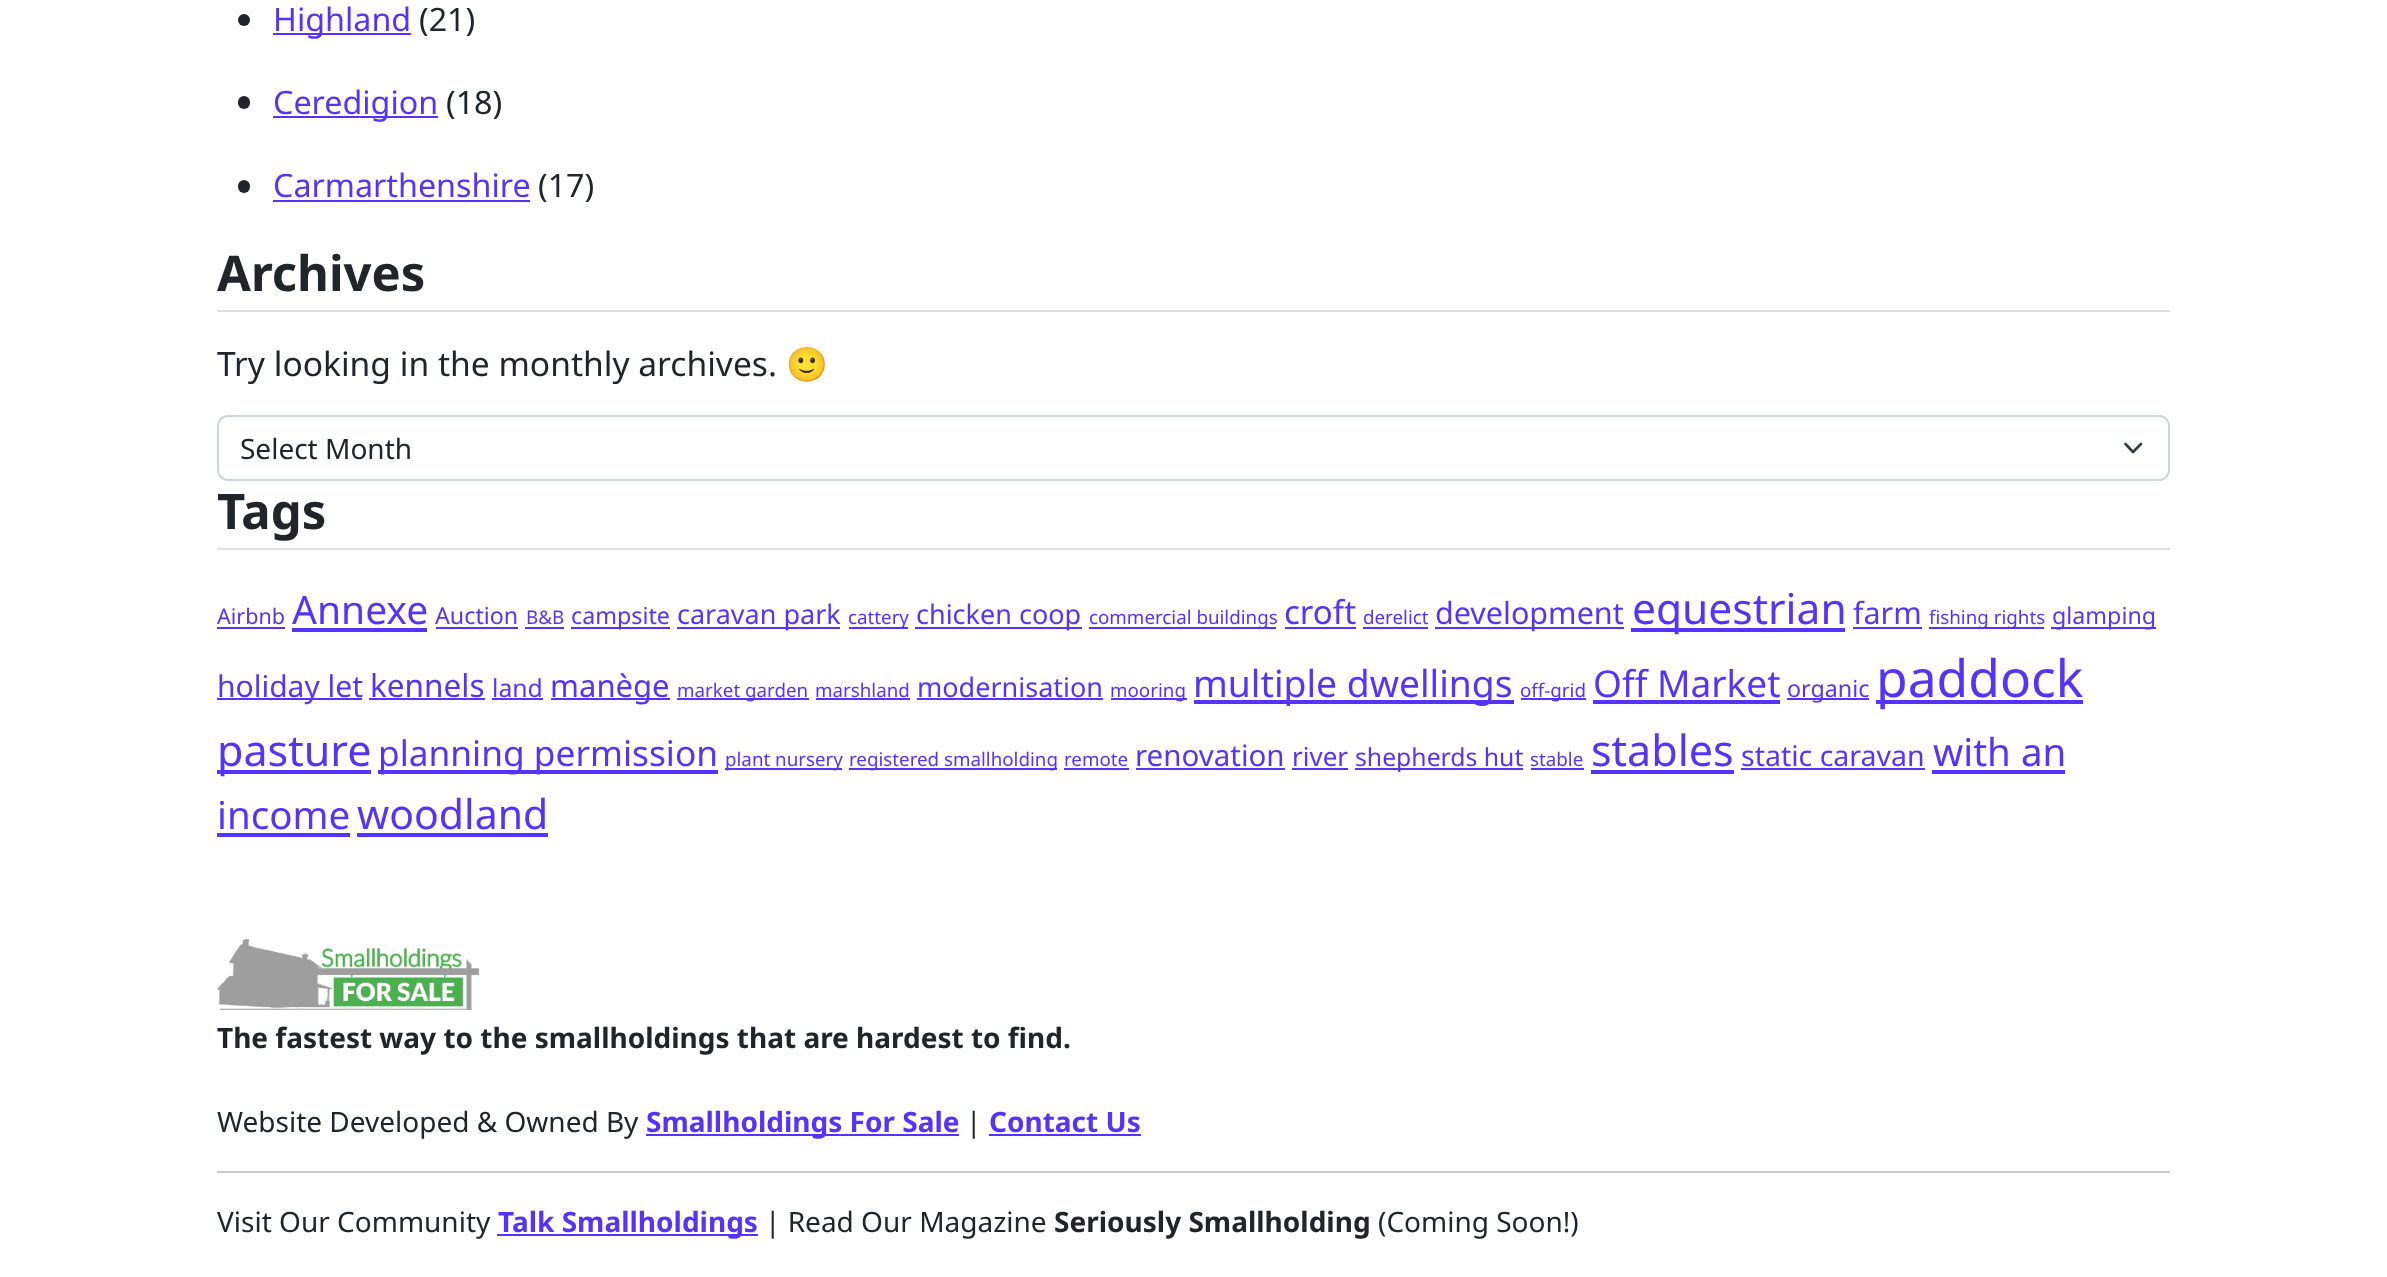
<?xml version="1.0" encoding="UTF-8"?>
<svg xmlns="http://www.w3.org/2000/svg" xmlns:xlink="http://www.w3.org/1999/xlink" width="2387" height="1277">
  <rect width="100%" height="100%" fill="#ffffff" />
  <circle cx="244" cy="20" r="6" fill="#212529" />
  <rect x="273" y="33" width="138" height="2" fill="#5533ff" />
  <rect x="238" y="96" width="12" height="13" rx="6" fill="#212529" />
  <rect x="273" y="116" width="165" height="2" fill="#5533ff" />
  <rect x="238" y="180" width="12" height="13" rx="6" fill="#212529" />
  <rect x="273" y="200" width="257" height="2" fill="#5533ff" />
  <rect x="217" y="310" width="1953" height="2" fill="#dfdfdf" />
  <path d="M 2125.5 444 l 7.5 8 l 8 -8" fill="none" stroke="#343a40" stroke-width="2.6" stroke-linecap="round" stroke-linejoin="round" />
  <rect x="218" y="416" width="1951" height="64" rx="10" fill="none" stroke="#ced4da" stroke-width="2" />
  <rect x="217" y="548" width="1953" height="2" fill="#dfdfdf" />
  <rect x="217" y="627" width="68" height="2" fill="#5533ff" />
  <rect x="292" y="628" width="135" height="4" fill="#5533ff" />
  <rect x="436" y="627" width="82" height="2" fill="#5533ff" />
  <rect x="525" y="627" width="39" height="2" fill="#5533ff" />
  <rect x="571" y="627" width="99" height="2" fill="#5533ff" />
  <rect x="677" y="627" width="163" height="2" fill="#5533ff" />
  <rect x="849" y="627" width="59" height="2" fill="#5533ff" />
  <rect x="915" y="627" width="167" height="2" fill="#5533ff" />
  <rect x="1089" y="627" width="187" height="2" fill="#5533ff" />
  <rect x="1285" y="627" width="71" height="2" fill="#5533ff" />
  <rect x="1363" y="627" width="65" height="2" fill="#5533ff" />
  <rect x="1435" y="627" width="189" height="2" fill="#5533ff" />
  <rect x="1631" y="628" width="214" height="4" fill="#5533ff" />
  <rect x="1853" y="627" width="69" height="2" fill="#5533ff" />
  <rect x="1929" y="627" width="115" height="2" fill="#5533ff" />
  <rect x="2051" y="627" width="105" height="2" fill="#5533ff" />
  <rect x="217" y="698" width="145" height="2" fill="#5533ff" />
  <rect x="369" y="698" width="116" height="2" fill="#5533ff" />
  <rect x="492" y="698" width="51" height="2" fill="#5533ff" />
  <rect x="551" y="698" width="119" height="2" fill="#5533ff" />
  <rect x="677" y="698" width="132" height="2" fill="#5533ff" />
  <rect x="816" y="698" width="94" height="2" fill="#5533ff" />
  <rect x="917" y="698" width="186" height="2" fill="#5533ff" />
  <rect x="1111" y="698" width="76" height="2" fill="#5533ff" />
  <rect x="1194" y="700" width="320" height="4" fill="#5533ff" />
  <rect x="1521" y="698" width="65" height="2" fill="#5533ff" />
  <rect x="1593" y="700" width="187" height="4" fill="#5533ff" />
  <rect x="1787" y="698" width="82" height="2" fill="#5533ff" />
  <rect x="1876" y="700" width="207" height="4" fill="#5533ff" />
  <rect x="217" y="770" width="154" height="4" fill="#5533ff" />
  <rect x="378" y="770" width="340" height="4" fill="#5533ff" />
  <rect x="725" y="768" width="117" height="2" fill="#5533ff" />
  <rect x="849" y="768" width="208" height="2" fill="#5533ff" />
  <rect x="1064" y="768" width="65" height="2" fill="#5533ff" />
  <rect x="1136" y="768" width="149" height="2" fill="#5533ff" />
  <rect x="1292" y="768" width="56" height="2" fill="#5533ff" />
  <rect x="1355" y="768" width="168" height="2" fill="#5533ff" />
  <rect x="1531" y="768" width="53" height="2" fill="#5533ff" />
  <rect x="1591" y="770" width="143" height="4" fill="#5533ff" />
  <rect x="1741" y="768" width="184" height="2" fill="#5533ff" />
  <rect x="1932" y="770" width="133" height="4" fill="#5533ff" />
  <rect x="217" y="833" width="133" height="4" fill="#5533ff" />
  <rect x="357" y="833" width="191" height="4" fill="#5533ff" />
  <image x="217" y="938" width="262" height="72" xlink:href="image1.png" />
  <rect x="646" y="1134" width="313" height="2" fill="#5533ff" />
  <rect x="989" y="1134" width="152" height="2" fill="#5533ff" />
  <rect x="217" y="1171" width="1953" height="2" fill="#c8c9ca" />
  <rect x="497" y="1234" width="261" height="2" fill="#5533ff" />
  <text x="273" y="31" style="font-family: Noto Sans; font-size: 32.25px; fill: #5533ff">Highland</text>
  <text x="419" y="31" style="font-family: Noto Sans; font-size: 32.25px; fill: #212529">(21)</text>
  <text x="273" y="114" style="font-family: Noto Sans; font-size: 32.25px; fill: #5533ff">Ceredigion</text>
  <text x="446" y="114" style="font-family: Noto Sans; font-size: 32.25px; fill: #212529">(18)</text>
  <text x="273" y="197" style="font-family: Noto Sans; font-size: 32.25px; fill: #5533ff">Carmarthenshire</text>
  <text x="538" y="197" style="font-family: Noto Sans; font-size: 32.25px; fill: #212529">(17)</text>
  <text x="217" y="291" style="font-family: Noto Sans; font-size: 49px; font-weight: bold; fill: #212529">Archives</text>
  <text x="217" y="376" style="font-family: Noto Sans; font-size: 33.6px; fill: #212529">Try looking in the monthly archives.</text>
  <text x="786" y="376" style="font-family: Noto Color Emoji; font-size: 33.6px; fill: #212529">🙂</text>
  <text x="240" y="459" style="font-family: Noto Sans; font-size: 28px; fill: #212529">Select Month</text>
  <text x="217" y="529" style="font-family: Noto Sans; font-size: 49px; font-weight: bold; fill: #212529">Tags</text>
  <text x="217" y="624" style="font-family: Noto Sans; font-size: 21.5px; fill: #5533ff">Airbnb</text>
  <text x="292" y="624" style="font-family: Noto Sans; font-size: 39px; fill: #5533ff">Annexe</text>
  <text x="435" y="624" style="font-family: Noto Sans; font-size: 23.25px; fill: #5533ff">Auction</text>
  <text x="526" y="624" style="font-family: Noto Sans; font-size: 18.75px; fill: #5533ff">B&amp;B</text>
  <text x="571" y="624" style="font-family: Noto Sans; font-size: 23.25px; fill: #5533ff">campsite</text>
  <text x="677" y="624" style="font-family: Noto Sans; font-size: 27px; fill: #5533ff">caravan park</text>
  <text x="848" y="624" style="font-family: Noto Sans; font-size: 18.75px; fill: #5533ff">cattery</text>
  <text x="916" y="624" style="font-family: Noto Sans; font-size: 27px; fill: #5533ff">chicken coop</text>
  <text x="1089" y="624" style="font-family: Noto Sans; font-size: 18.75px; fill: #5533ff">commercial buildings</text>
  <text x="1284" y="624" style="font-family: Noto Sans; font-size: 33px; fill: #5533ff">croft</text>
  <text x="1363" y="624" style="font-family: Noto Sans; font-size: 18.75px; fill: #5533ff">derelict</text>
  <text x="1435" y="624" style="font-family: Noto Sans; font-size: 30.5px; fill: #5533ff">development</text>
  <text x="1632" y="624" style="font-family: Noto Sans; font-size: 42.5px; fill: #5533ff">equestrian</text>
  <text x="1853" y="624" style="font-family: Noto Sans; font-size: 30.5px; fill: #5533ff">farm</text>
  <text x="1929" y="624" style="font-family: Noto Sans; font-size: 18.75px; fill: #5533ff">fishing rights</text>
  <text x="2052" y="624" style="font-family: Noto Sans; font-size: 23.25px; fill: #5533ff">glamping</text>
  <text x="217" y="697" style="font-family: Noto Sans; font-size: 30px; fill: #5533ff">holiday let</text>
  <text x="370" y="697" style="font-family: Noto Sans; font-size: 31.5px; fill: #5533ff">kennels</text>
  <text x="492" y="697" style="font-family: Noto Sans; font-size: 24.75px; fill: #5533ff">land</text>
  <text x="550" y="697" style="font-family: Noto Sans; font-size: 31px; fill: #5533ff">manège</text>
  <text x="677" y="697" style="font-family: Noto Sans; font-size: 18.75px; fill: #5533ff">market garden</text>
  <text x="815" y="697" style="font-family: Noto Sans; font-size: 18.75px; fill: #5533ff">marshland</text>
  <text x="917" y="697" style="font-family: Noto Sans; font-size: 27px; fill: #5533ff">modernisation</text>
  <text x="1110" y="697" style="font-family: Noto Sans; font-size: 18.75px; fill: #5533ff">mooring</text>
  <text x="1193" y="697" style="font-family: Noto Sans; font-size: 37.25px; fill: #5533ff">multiple dwellings</text>
  <text x="1520" y="697" style="font-family: Noto Sans; font-size: 18.75px; fill: #5533ff">off-grid</text>
  <text x="1593" y="697" style="font-family: Noto Sans; font-size: 37px; fill: #5533ff">Off Market</text>
  <text x="1787" y="697" style="font-family: Noto Sans; font-size: 23.25px; fill: #5533ff">organic</text>
  <text x="1876" y="697" style="font-family: Noto Sans; font-size: 51.5px; fill: #5533ff">paddock</text>
  <text x="217" y="766" style="font-family: Noto Sans; font-size: 43px; fill: #5533ff">pasture</text>
  <text x="378" y="766" style="font-family: Noto Sans; font-size: 35.25px; fill: #5533ff">planning permission</text>
  <text x="725" y="766" style="font-family: Noto Sans; font-size: 18.75px; fill: #5533ff">plant nursery</text>
  <text x="849" y="766" style="font-family: Noto Sans; font-size: 18.75px; fill: #5533ff">registered smallholding</text>
  <text x="1064" y="766" style="font-family: Noto Sans; font-size: 18.75px; fill: #5533ff">remote</text>
  <text x="1135" y="766" style="font-family: Noto Sans; font-size: 29.5px; fill: #5533ff">renovation</text>
  <text x="1292" y="766" style="font-family: Noto Sans; font-size: 26px; fill: #5533ff">river</text>
  <text x="1355" y="766" style="font-family: Noto Sans; font-size: 24.75px; fill: #5533ff">shepherds hut</text>
  <text x="1530" y="766" style="font-family: Noto Sans; font-size: 18.75px; fill: #5533ff">stable</text>
  <text x="1591" y="766" style="font-family: Noto Sans; font-size: 43px; fill: #5533ff">stables</text>
  <text x="1741" y="766" style="font-family: Noto Sans; font-size: 28.5px; fill: #5533ff">static caravan</text>
  <text x="1933" y="766" style="font-family: Noto Sans; font-size: 38.5px; fill: #5533ff">with an</text>
  <text x="217" y="829" style="font-family: Noto Sans; font-size: 38.5px; fill: #5533ff">income</text>
  <text x="357" y="829" style="font-family: Noto Sans; font-size: 41px; fill: #5533ff">woodland</text>
  <text x="217" y="1048" style="font-family: Noto Sans; font-size: 28px; font-weight: bold; fill: #212529">The fastest way to the smallholdings that are hardest to find.</text>
  <text x="217" y="1132" style="font-family: Noto Sans; font-size: 28px; fill: #212529">Website Developed &amp; Owned By</text>
  <text x="646" y="1132" style="font-family: Noto Sans; font-size: 28px; font-weight: bold; fill: #5533ff">Smallholdings For Sale</text>
  <text x="966" y="1132" style="font-family: Noto Sans; font-size: 28px; fill: #212529">|</text>
  <text x="989" y="1132" style="font-family: Noto Sans; font-size: 28px; font-weight: bold; fill: #5533ff">Contact Us</text>
  <text x="217" y="1232" style="font-family: Noto Sans; font-size: 28px; fill: #212529">Visit Our Community</text>
  <text x="498" y="1232" style="font-family: Noto Sans; font-size: 28px; font-weight: bold; fill: #5533ff">Talk Smallholdings</text>
  <text x="765" y="1232" style="font-family: Noto Sans; font-size: 28px; fill: #212529">| Read Our Magazine</text>
  <text x="1054" y="1232" style="font-family: Noto Sans; font-size: 28px; font-weight: bold; fill: #212529">Seriously Smallholding</text>
  <text x="1378" y="1232" style="font-family: Noto Sans; font-size: 28px; fill: #212529">(Coming Soon!)</text>
</svg>
